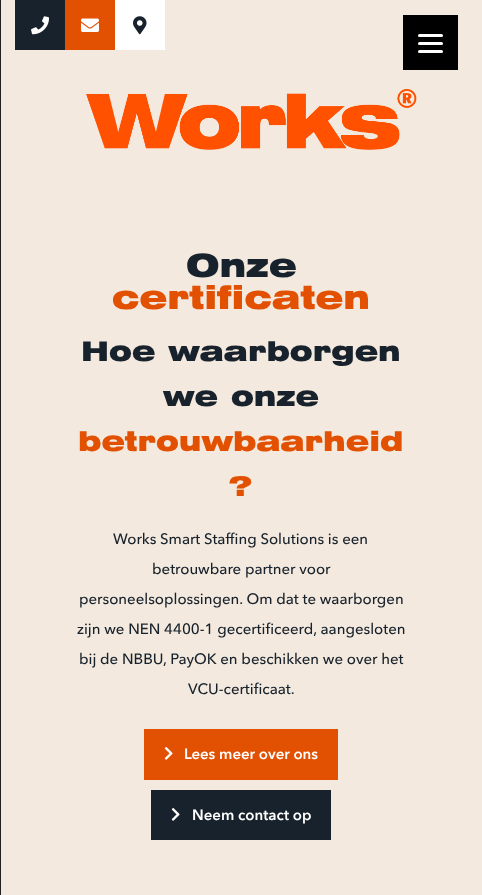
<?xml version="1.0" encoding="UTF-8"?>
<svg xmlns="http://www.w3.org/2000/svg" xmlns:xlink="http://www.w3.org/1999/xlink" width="482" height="895">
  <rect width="100%" height="100%" fill="#f4e9de" />
  <rect width="1" height="895" fill="#212121" />
  <rect x="403" y="15" width="55" height="55" fill="#000000" />
  <rect x="418" y="42" width="25" height="3" rx="1.5" fill="#ffffff" />
  <rect x="418" y="34" width="25" height="3" rx="1.5" fill="#ffffff" />
  <rect x="418" y="50" width="25" height="3" rx="1.5" fill="#ffffff" />
  <rect x="15" width="50" height="50" fill="#17222c" />
  <image x="31" y="16" width="18" height="19" xlink:href="image1.png" />
  <rect x="65" width="50" height="50" fill="#e25102" />
  <image x="81" y="18" width="18" height="14" xlink:href="image2.png" />
  <rect x="115" width="50" height="50" fill="#ffffff" />
  <image x="133" y="16" width="14" height="19" xlink:href="image3.png" />
  <image x="86" y="88" width="331" height="62" xlink:href="image4.png" />
  <rect x="144" y="729" width="194" height="51" fill="#e25102" />
  <image x="164" y="747" width="9" height="13" xlink:href="image5.png" />
  <rect x="151" y="790" width="180" height="50" fill="#17222c" />
  <image x="171" y="808" width="9" height="13" xlink:href="image6.png" />
  <text x="186" y="277" style="font-family: 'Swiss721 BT'; font-size: 32px; font-weight: 900; fill: #17222c">Onze</text>
  <text x="112" y="309" style="font-family: 'Swiss721 BT'; font-size: 32px; font-weight: 900; fill: #e25102">certificaten</text>
  <text x="81" y="361" style="font-family: 'Swiss721 BT'; font-size: 27px; font-weight: 900; fill: #17222c">Hoe waarborgen</text>
  <text x="163" y="406" style="font-family: 'Swiss721 BT'; font-size: 27px; font-weight: 900; fill: #17222c">we onze</text>
  <text x="78" y="451" style="font-family: 'Swiss721 BT'; font-size: 27px; font-weight: 900; fill: #e25102">betrouwbaarheid</text>
  <text x="229" y="496" style="font-family: 'Swiss721 BT'; font-size: 27px; font-weight: 900; fill: #e25102">?</text>
  <text x="113" y="544" style="font-family: Avenir Next; font-size: 15px; font-weight: 500; fill: #17222c">Works Smart Staffing Solutions is een</text>
  <text x="152" y="574" style="font-family: Avenir Next; font-size: 15px; font-weight: 500; fill: #17222c">betrouwbare partner voor</text>
  <text x="79" y="604" style="font-family: Avenir Next; font-size: 15px; font-weight: 500; fill: #17222c">personeelsoplossingen. Om dat te waarborgen</text>
  <text x="77" y="634" style="font-family: Avenir Next; font-size: 15px; font-weight: 500; fill: #17222c">zijn we NEN 4400-1 gecertificeerd, aangesloten</text>
  <text x="79" y="664" style="font-family: Avenir Next; font-size: 15px; font-weight: 500; fill: #17222c">bij de NBBU, PayOK en beschikken we over het</text>
  <text x="188" y="694" style="font-family: Avenir Next; font-size: 15px; font-weight: 500; fill: #17222c">VCU-certificaat.</text>
  <text x="184" y="759" style="font-family: Avenir Next; font-size: 15px; font-weight: 600; fill: #ffffff">Lees meer over ons</text>
  <text x="192" y="820" style="font-family: Avenir Next; font-size: 15px; font-weight: 600; fill: #ffffff">Neem contact op</text>
</svg>
